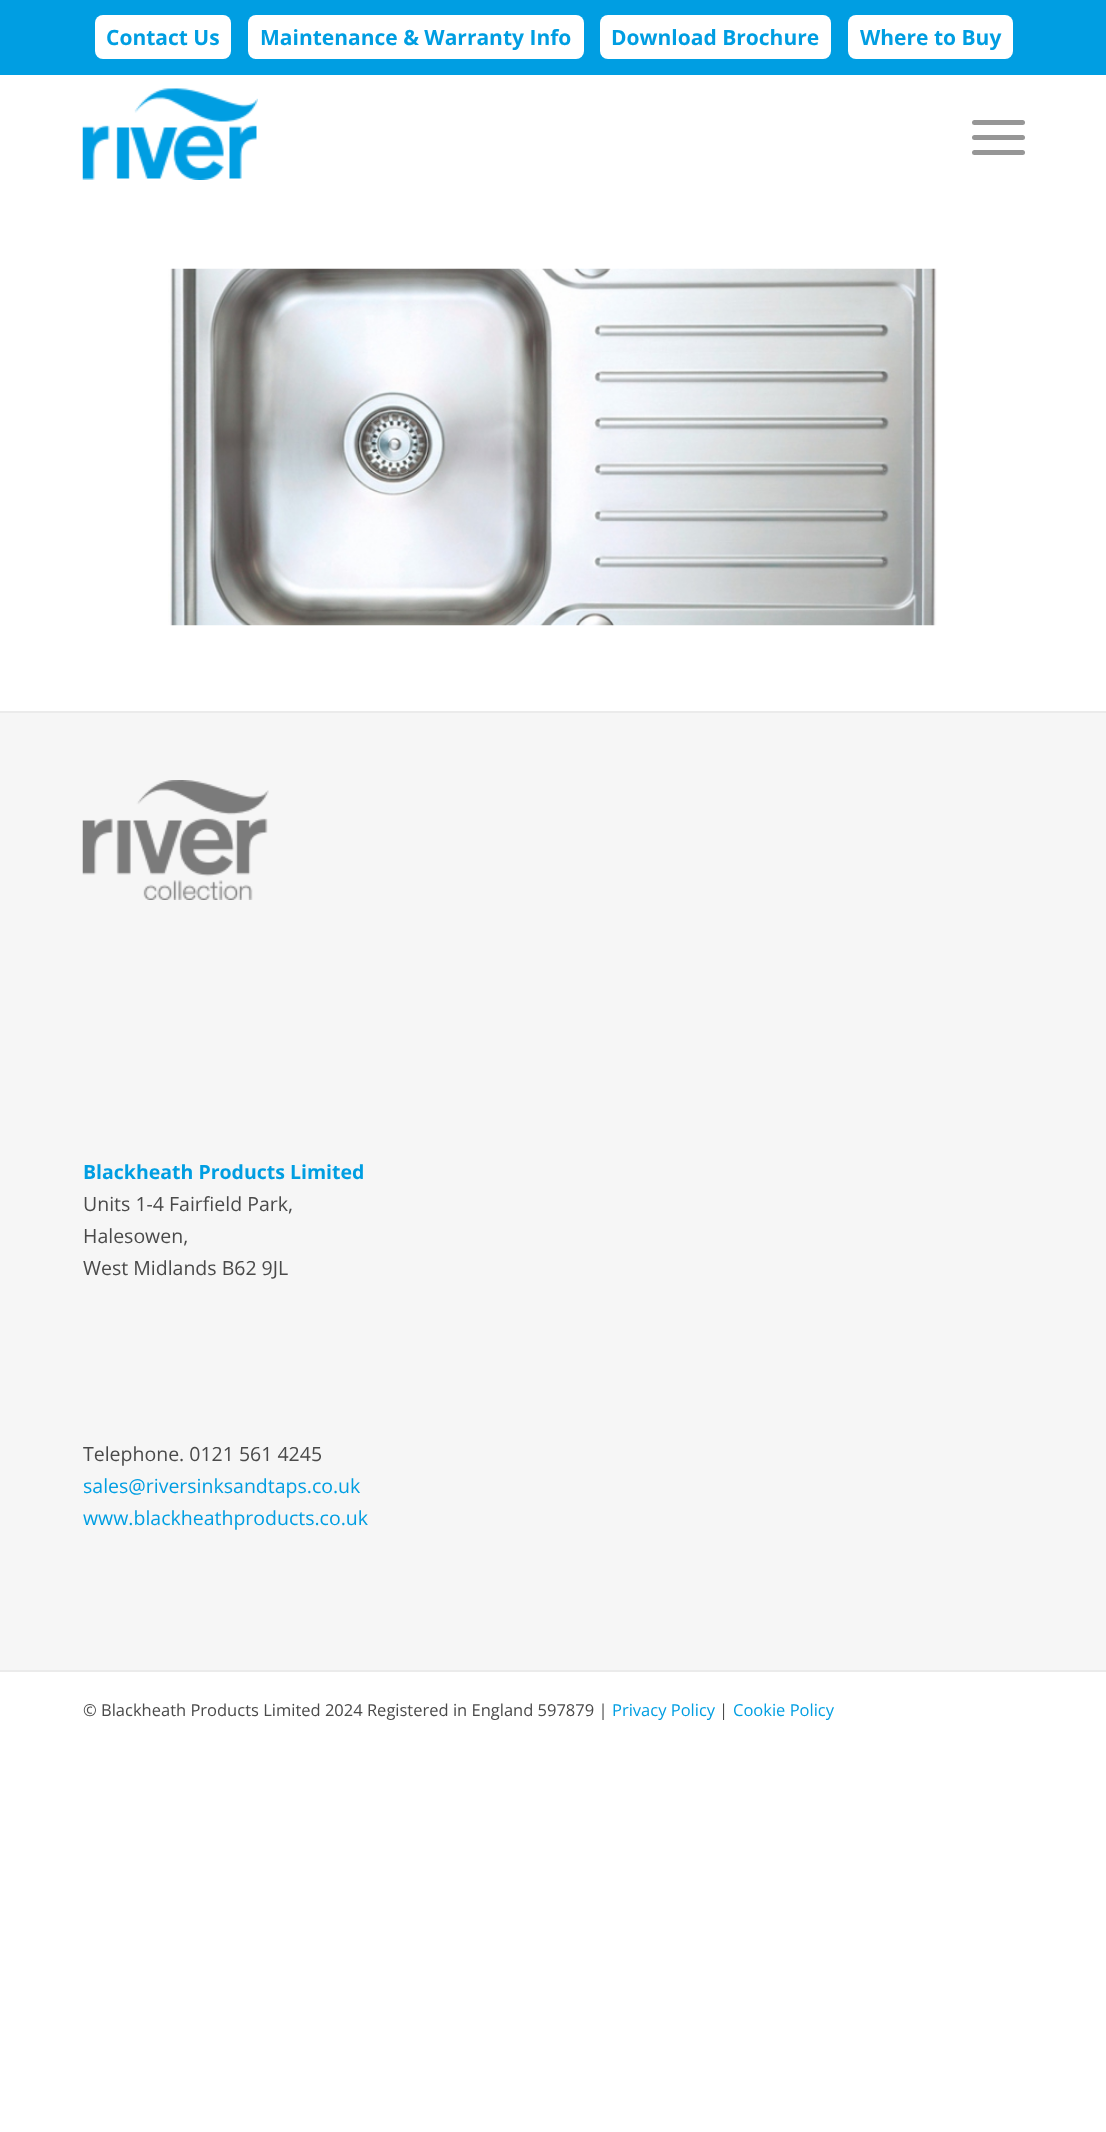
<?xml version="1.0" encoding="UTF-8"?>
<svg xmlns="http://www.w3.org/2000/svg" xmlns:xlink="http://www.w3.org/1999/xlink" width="1106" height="2132">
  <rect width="100%" height="100%" fill="#ffffff" />
  <rect width="1106" height="75" fill="#009ee2" />
  <rect x="95" y="15" width="136" height="44" rx="8" fill="#ffffff" />
  <rect x="248" y="15" width="336" height="44" rx="8" fill="#ffffff" />
  <rect x="600" y="15" width="231" height="44" rx="8" fill="#ffffff" />
  <rect x="848" y="15" width="165" height="44" rx="8" fill="#ffffff" />
  <image x="82" y="88" width="176" height="92" xlink:href="image1.png" />
  <rect x="972" y="135" width="53" height="5" rx="2.5" fill="#969696" />
  <rect x="972" y="120" width="53" height="5" rx="2.5" fill="#969696" />
  <rect x="972" y="150" width="53" height="5" rx="2.5" fill="#969696" />
  <image x="168" y="268" width="769" height="358" xlink:href="image2.png" />
  <rect y="713" width="1106" height="957" fill="#f6f6f6" />
  <rect y="711" width="1106" height="2" fill="#ebebeb" />
  <image x="82" y="780" width="187" height="120" xlink:href="image3.png" />
  <rect y="1670" width="1106" height="2" fill="#ebebeb" />
  <text x="106" y="45" style="font-family: Open Sans; font-size: 21px; font-weight: bold; fill: #009ee2">Contact Us</text>
  <text x="260" y="45" style="font-family: Open Sans; font-size: 21px; font-weight: bold; fill: #009ee2">Maintenance &amp; Warranty Info</text>
  <text x="611" y="45" style="font-family: Open Sans; font-size: 21px; font-weight: bold; fill: #009ee2">Download Brochure</text>
  <text x="860" y="45" style="font-family: Open Sans; font-size: 21px; font-weight: bold; fill: #009ee2">Where to Buy</text>
  <text x="83" y="1179" style="font-family: Open Sans; font-size: 19.5px; font-weight: bold; fill: #009ee2">Blackheath Products Limited</text>
  <text x="83" y="1211" style="font-family: Open Sans; font-size: 19.5px; fill: #4a4a4a">Units 1-4 Fairfield Park,</text>
  <text x="83" y="1243" style="font-family: Open Sans; font-size: 19.5px; fill: #4a4a4a">Halesowen,</text>
  <text x="83" y="1275" style="font-family: Open Sans; font-size: 19.5px; fill: #4a4a4a">West Midlands B62 9JL</text>
  <text x="83" y="1461" style="font-family: Open Sans; font-size: 19.5px; fill: #4a4a4a">Telephone. 0121 561 4245</text>
  <text x="83" y="1493" style="font-family: Open Sans; font-size: 19.5px; fill: #009ee2">sales@riversinksandtaps.co.uk</text>
  <text x="83" y="1525" style="font-family: Open Sans; font-size: 19.5px; fill: #009ee2">www.blackheathproducts.co.uk</text>
  <text x="83" y="1716" style="font-family: Open Sans; font-size: 16.5px; fill: #4a4a4a">© Blackheath Products Limited 2024 Registered in England 597879 |</text>
  <text x="612" y="1716" style="font-family: Open Sans; font-size: 16.5px; fill: #009ee2">Privacy Policy</text>
  <text x="719" y="1716" style="font-family: Open Sans; font-size: 16.5px; fill: #4a4a4a">|</text>
  <text x="733" y="1716" style="font-family: Open Sans; font-size: 16.5px; fill: #009ee2">Cookie Policy</text>
</svg>
